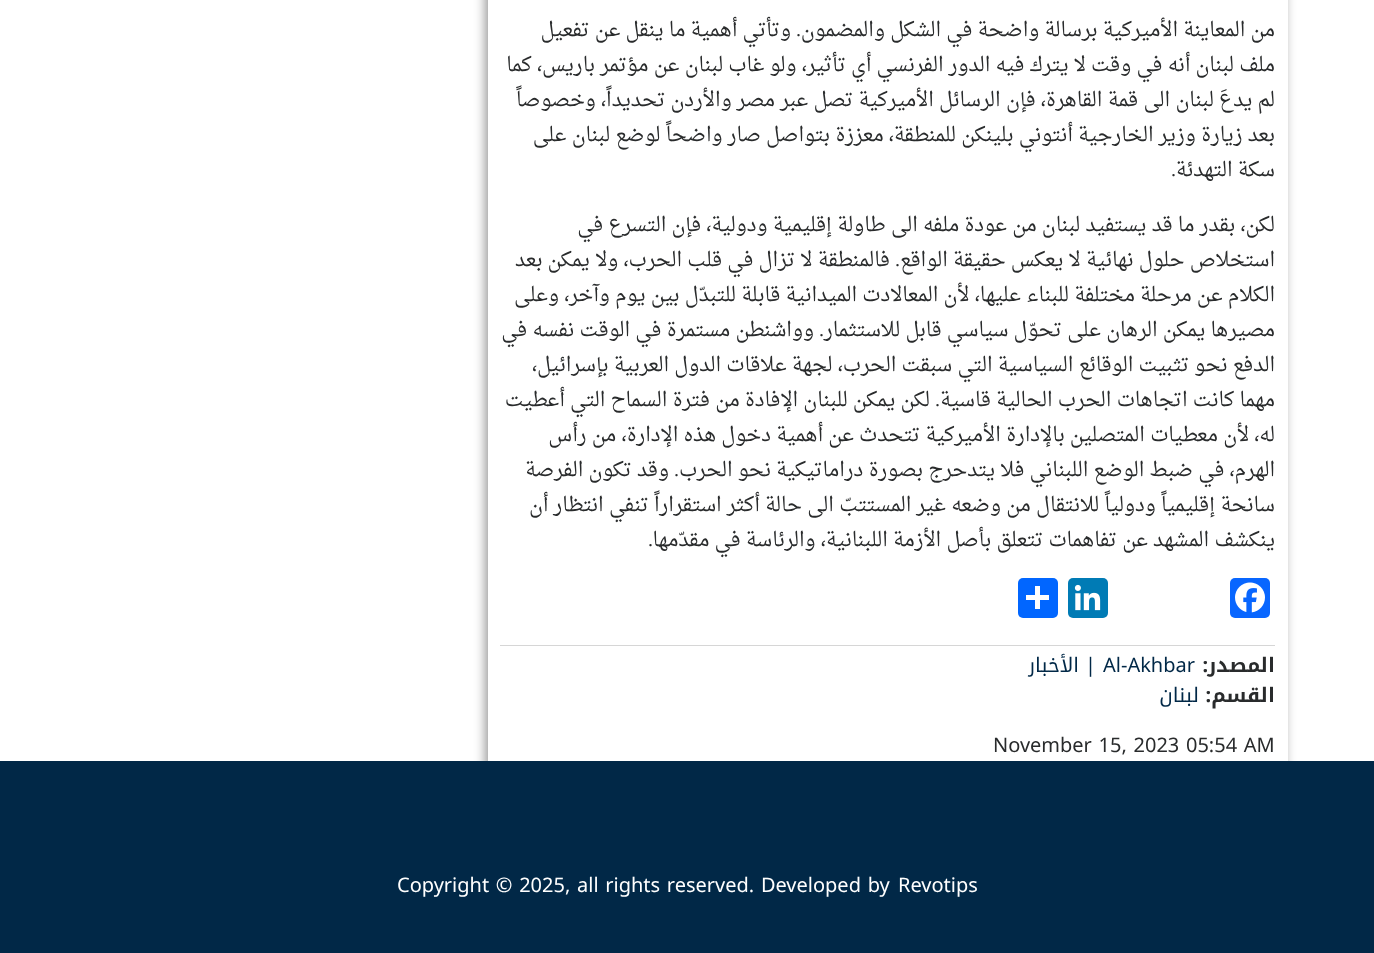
<?xml version="1.0" encoding="UTF-8"?>
<svg xmlns="http://www.w3.org/2000/svg" xmlns:xlink="http://www.w3.org/1999/xlink" width="1374" height="953">
  <rect width="100%" height="100%" fill="#ffffff" />
  <rect x="485" y="-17" width="800" height="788" fill="#000000" fill-opacity="0.4" filter="blur(5.5px)" />
  <rect x="488" width="800" height="761" fill="#ffffff" />
  <rect x="1230" y="578" width="40" height="40" rx="5" fill="#0866ff" />
  <image x="1235" y="582" width="30" height="31" xlink:href="image1.png" />
  <rect x="1068" y="578" width="40" height="40" rx="5" fill="#007bb5" />
  <image x="1074" y="584" width="27" height="27" xlink:href="image2.png" />
  <rect x="1018" y="578" width="40" height="40" rx="5" fill="#0166ff" />
  <rect x="1035" y="586" width="5" height="23" fill="#ffffff" />
  <rect x="1026" y="595" width="23" height="5" fill="#ffffff" />
  <rect x="500" y="645" width="775" height="1" fill="#d6d6d6" />
  <rect y="761" width="1374" height="192" fill="#012847" />
  <text x="1275" y="36" style="font-family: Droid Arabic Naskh; font-size: 20px; direction: rtl; fill: #292b2c">من المعاينة الأميركية برسالة واضحة في الشكل والمضمون</text>
  <text x="801" y="36" style="font-family: Liberation Serif; font-size: 20px; direction: rtl; fill: #292b2c">.</text>
  <text x="791" y="36" style="font-family: Droid Arabic Naskh; font-size: 20px; direction: rtl; fill: #292b2c">وتأتي أهمية ما ينقل عن تفعيل</text>
  <text x="1275" y="71" style="font-family: Droid Arabic Naskh; font-size: 20px; direction: rtl; fill: #292b2c">ملف لبنان أنه في وقت لا يترك فيه الدور الفرنسي أي تأثير، ولو غاب لبنان عن مؤتمر باريس، كما</text>
  <text x="1275" y="106" style="font-family: Droid Arabic Naskh; font-size: 20px; direction: rtl; fill: #292b2c">لم يدعَ لبنان الى قمة القاهرة، فإن الرسائل الأميركية تصل عبر مصر والأردن تحديداً، وخصوصاً</text>
  <text x="1275" y="141" style="font-family: Droid Arabic Naskh; font-size: 20px; direction: rtl; fill: #292b2c">بعد زيارة وزير الخارجية أنتوني بلينكن للمنطقة، معززة بتواصل صار واضحاً لوضع لبنان على</text>
  <text x="1275" y="176" style="font-family: Droid Arabic Naskh; font-size: 20px; direction: rtl; fill: #292b2c">سكة التهدئة</text>
  <text x="1176" y="176" style="font-family: Liberation Serif; font-size: 20px; direction: rtl; fill: #292b2c">.</text>
  <text x="1275" y="231" style="font-family: Droid Arabic Naskh; font-size: 20px; direction: rtl; fill: #292b2c">لكن، بقدر ما قد يستفيد لبنان من عودة ملفه الى طاولة إقليمية ودولية، فإن التسرع في</text>
  <text x="1275" y="266" style="font-family: Droid Arabic Naskh; font-size: 20px; direction: rtl; fill: #292b2c">استخلاص حلول نهائية لا يعكس حقيقة الواقع</text>
  <text x="900" y="266" style="font-family: Liberation Serif; font-size: 20px; direction: rtl; fill: #292b2c">.</text>
  <text x="890" y="266" style="font-family: Droid Arabic Naskh; font-size: 20px; direction: rtl; fill: #292b2c">فالمنطقة لا تزال في قلب الحرب، ولا يمكن بعد</text>
  <text x="1275" y="301" style="font-family: Droid Arabic Naskh; font-size: 20px; direction: rtl; fill: #292b2c">الكلام عن مرحلة مختلفة للبناء عليها، لأن المعالادت الميدانية قابلة للتبدّل بين يوم وآخر، وعلى</text>
  <text x="1275" y="336" style="font-family: Droid Arabic Naskh; font-size: 20px; direction: rtl; fill: #292b2c">مصيرها يمكن الرهان على تحوّل سياسي قابل للاستثمار</text>
  <text x="824" y="336" style="font-family: Liberation Serif; font-size: 20px; direction: rtl; fill: #292b2c">.</text>
  <text x="814" y="336" style="font-family: Droid Arabic Naskh; font-size: 20px; direction: rtl; fill: #292b2c">وواشنطن مستمرة في الوقت نفسه في</text>
  <text x="1275" y="371" style="font-family: Droid Arabic Naskh; font-size: 20px; direction: rtl; fill: #292b2c">الدفع نحو تثبيت الوقائع السياسية التي سبقت الحرب، لجهة علاقات الدول العربية بإسرائيل،</text>
  <text x="1275" y="406" style="font-family: Droid Arabic Naskh; font-size: 20px; direction: rtl; fill: #292b2c">مهما كانت اتجاهات الحرب الحالية قاسية</text>
  <text x="940" y="406" style="font-family: Liberation Serif; font-size: 20px; direction: rtl; fill: #292b2c">.</text>
  <text x="930" y="406" style="font-family: Droid Arabic Naskh; font-size: 20px; direction: rtl; fill: #292b2c">لكن يمكن للبنان الإفادة من فترة السماح التي أعطيت</text>
  <text x="1275" y="441" style="font-family: Droid Arabic Naskh; font-size: 20px; direction: rtl; fill: #292b2c">له، لأن معطيات المتصلين بالإدارة الأميركية تتحدث عن أهمية دخول هذه الإدارة، من رأس</text>
  <text x="1275" y="476" style="font-family: Droid Arabic Naskh; font-size: 20px; direction: rtl; fill: #292b2c">الهرم، في ضبط الوضع اللبناني فلا يتدحرج بصورة دراماتيكية نحو الحرب</text>
  <text x="679" y="476" style="font-family: Liberation Serif; font-size: 20px; direction: rtl; fill: #292b2c">.</text>
  <text x="669" y="476" style="font-family: Droid Arabic Naskh; font-size: 20px; direction: rtl; fill: #292b2c">وقد تكون الفرصة</text>
  <text x="1275" y="511" style="font-family: Droid Arabic Naskh; font-size: 20px; direction: rtl; fill: #292b2c">سانحة إقليمياً ودولياً للانتقال من وضعه غير المستتبّ الى حالة أكثر استقراراً تنفي انتظار أن</text>
  <text x="1275" y="546" style="font-family: Droid Arabic Naskh; font-size: 20px; direction: rtl; fill: #292b2c">ينكشف المشهد عن تفاهمات تتعلق بأصل الأزمة اللبنانية، والرئاسة في مقدّمها</text>
  <text x="653" y="546" style="font-family: Liberation Serif; font-size: 20px; direction: rtl; fill: #292b2c">.</text>
  <text x="1208" y="672" style="font-family: Noto Sans; font-size: 20px; font-weight: bold; direction: rtl; fill: #292b2c">:</text>
  <text x="1275" y="672" style="font-family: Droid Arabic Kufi; font-size: 20px; font-weight: bold; direction: rtl; fill: #292b2c">المصدر</text>
  <text x="1103" y="672" style="font-family: Noto Sans; font-size: 20px; fill: #012847">Al-Akhbar</text>
  <text x="1096" y="672" style="font-family: Noto Sans; font-size: 20px; direction: rtl; fill: #012847">|</text>
  <text x="1079" y="672" style="font-family: Droid Arabic Kufi; font-size: 20px; direction: rtl; fill: #012847">الأخبار</text>
  <text x="1275" y="702" style="font-family: Droid Arabic Kufi; font-size: 20px; font-weight: bold; direction: rtl; fill: #292b2c">القسم</text>
  <text x="1211" y="702" style="font-family: Noto Sans; font-size: 20px; font-weight: bold; direction: rtl; fill: #292b2c">:</text>
  <text x="1199" y="702" style="font-family: Droid Arabic Kufi; font-size: 20px; direction: rtl; fill: #012847">لبنان</text>
  <text x="993" y="752" word-spacing="1.5" style="font-family: Noto Sans; font-size: 20px; fill: #292b2c">November 15, 2023 05:54 AM</text>
  <text x="898" y="892" style="font-family: Noto Sans; font-size: 20px; fill: #ffffff">Revotips</text>
  <text x="397" y="892" word-spacing="1.5" style="font-family: Noto Sans; font-size: 20px; fill: #ffffff">Copyright © 2025, all rights reserved. Developed by</text>
</svg>
